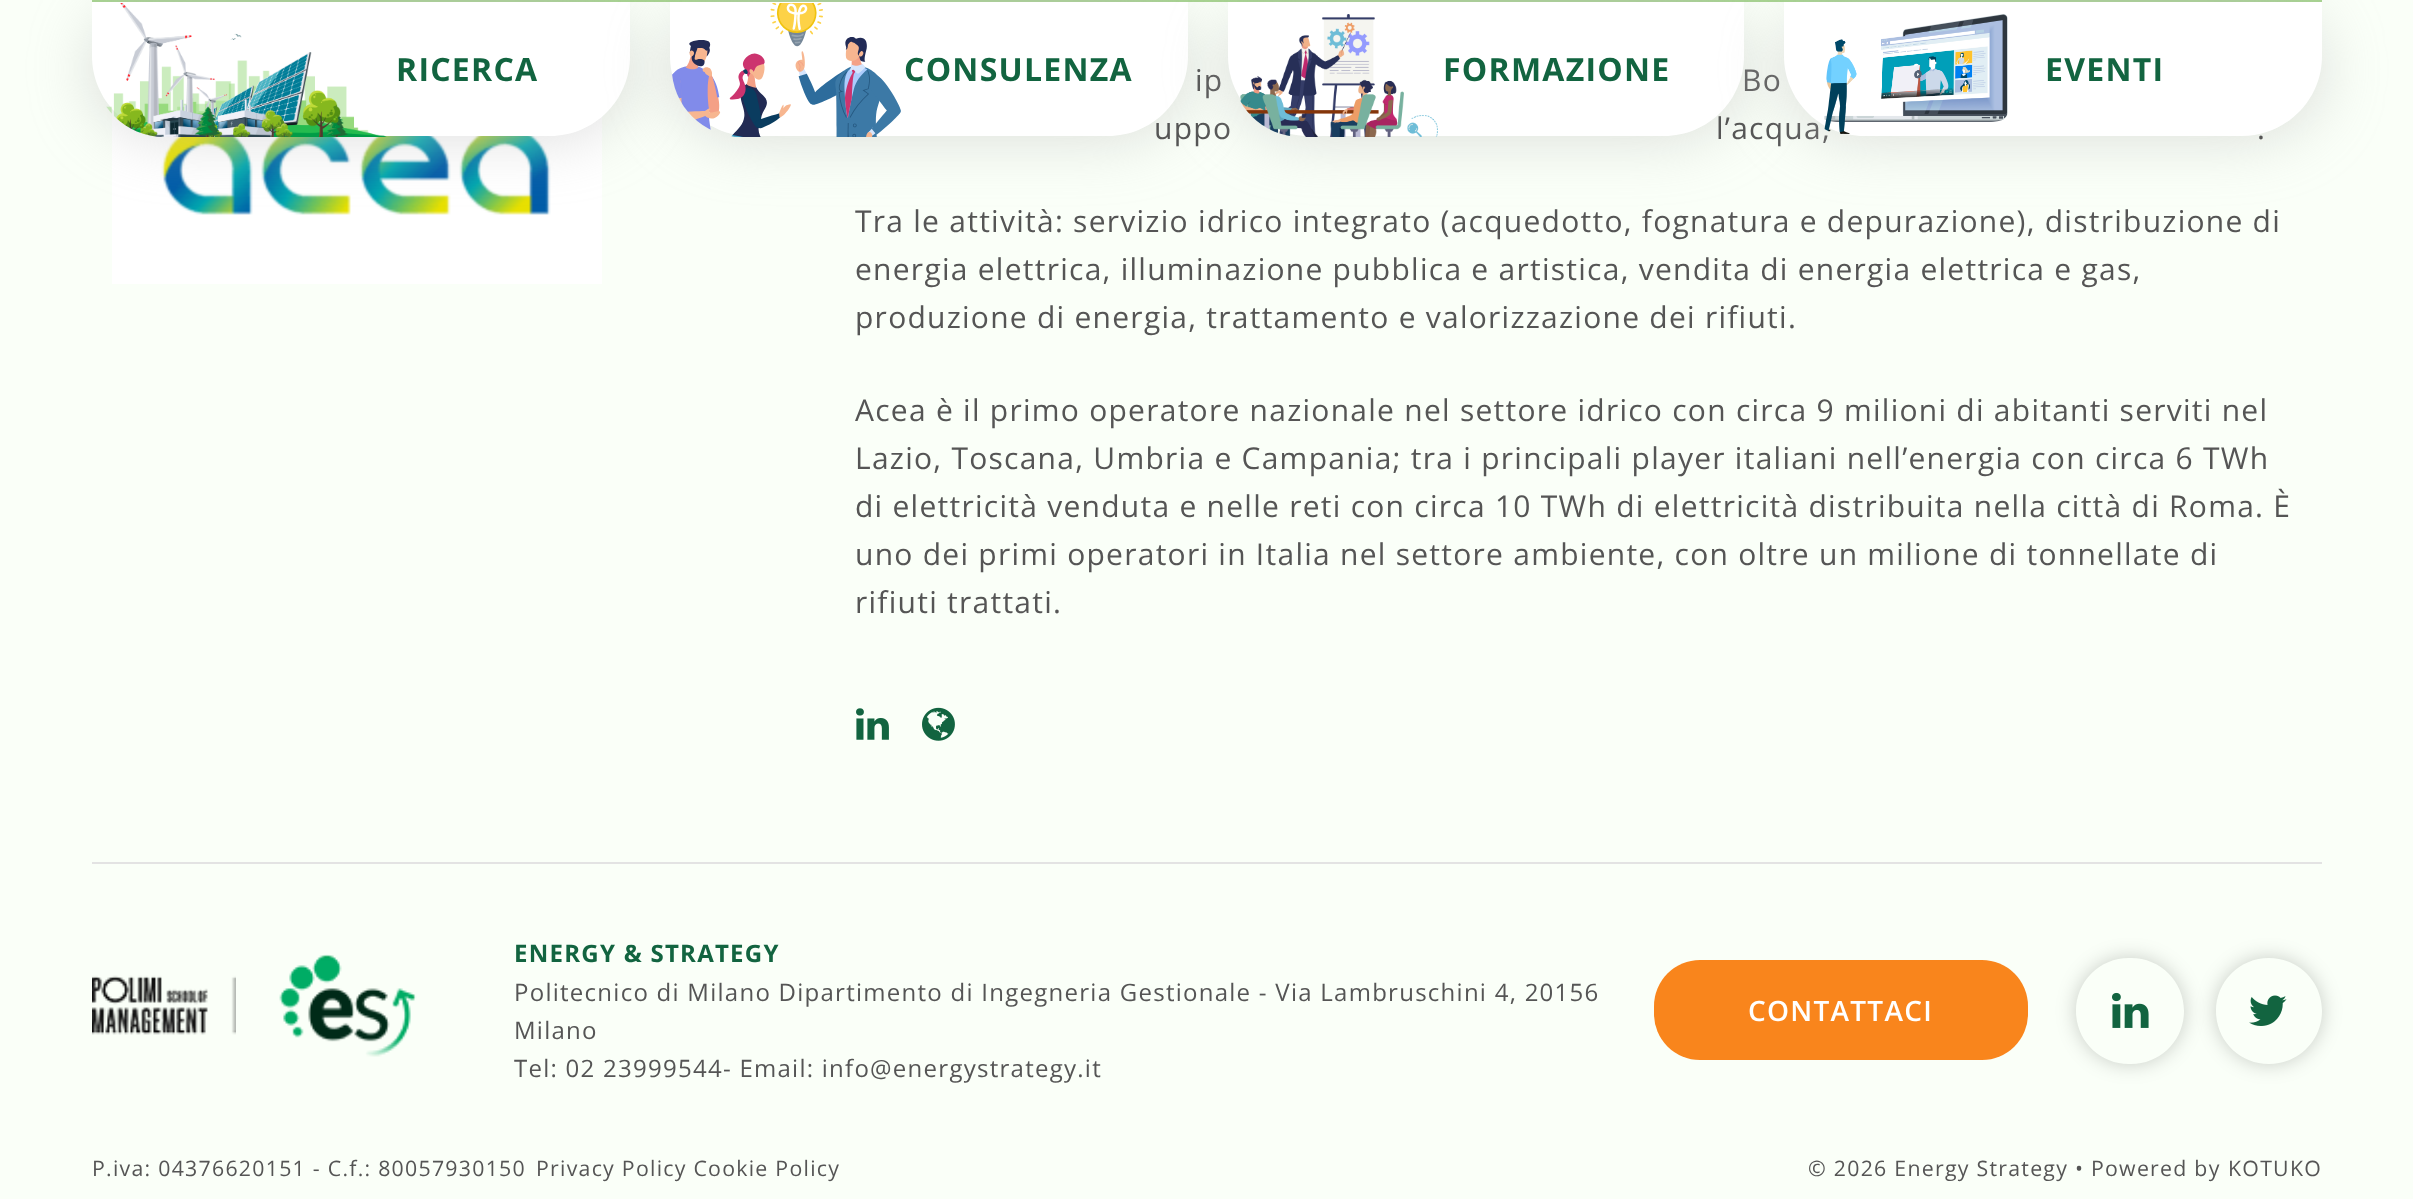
<?xml version="1.0" encoding="UTF-8"?>
<svg xmlns="http://www.w3.org/2000/svg" xmlns:xlink="http://www.w3.org/1999/xlink" width="2413" height="1199">
  <defs>
    <clipPath id="clip1"><path d="M 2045 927 h 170 v 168 h -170 z m 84 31 h 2 c 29.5 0 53 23.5 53 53 c 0 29.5 -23.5 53 -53 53 h -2 c -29.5 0 -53 -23.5 -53 -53 c 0 -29.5 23.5 -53 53 -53 z" clip-rule="evenodd" /></clipPath>
    <clipPath id="clip2"><path d="M 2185 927 h 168 v 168 h -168 z m 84 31 c 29.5 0 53 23.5 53 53 c 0 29.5 -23.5 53 -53 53 c -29.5 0 -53 -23.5 -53 -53 c 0 -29.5 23.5 -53 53 -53 z" clip-rule="evenodd" /></clipPath>
  </defs>
  <rect width="100%" height="100%" fill="#fafff8" />
  <rect x="92" width="2230" height="2" fill="#a6d38f" />
  <image x="112" y="108" width="490" height="176" xlink:href="image5.png" />
  <rect x="92" y="2" width="538" height="134" rx="80" fill="#bababa" fill-opacity="0.5" filter="blur(31px)" />
  <path d="M 92 2 h 538 v 54 c 0 44 -36 80 -80 80 h -378 c -44 0 -80 -36 -80 -80 z" fill="#ffffff" />
  <image x="106" y="3" width="281" height="134" xlink:href="image1.png" />
  <rect x="670" y="2" width="518" height="134" rx="80" fill="#bababa" fill-opacity="0.5" filter="blur(31px)" />
  <image x="856" y="708" width="33" height="32" xlink:href="image6.png" />
  <image x="922" y="707" width="33" height="34" xlink:href="image7.png" />
  <rect x="92" y="862" width="2230" height="2" fill="#e3e3e3" />
  <image x="92" y="975" width="144" height="60" xlink:href="image8.png" />
  <image x="279" y="954" width="138" height="103" xlink:href="image9.png" />
  <rect x="1654" y="960" width="374" height="100" rx="46" fill="#f9851c" />
  <g clip-path="url(#clip1)">
    <rect x="2076" y="958" width="108" height="106" rx="53" fill="#000000" fill-opacity="0.2" filter="blur(10px)" />
  </g>
  <image x="2112" y="992" width="37" height="36" xlink:href="image10.png" />
  <g clip-path="url(#clip2)">
    <rect x="2216" y="958" width="106" height="106" rx="53" fill="#000000" fill-opacity="0.2" filter="blur(10px)" />
  </g>
  <image x="2249" y="995" width="38" height="31" xlink:href="image11.png" />
  <text x="396" y="81" style="font-family: Open Sans; font-size: 32px; font-weight: bold; letter-spacing: 1.25px; fill: #126440">RICERCA</text>
  <text x="1195" y="91" style="font-family: Open Sans; font-size: 30px; letter-spacing: 1.26px; fill: #555555">ip</text>
  <text x="1742" y="91" style="font-family: Open Sans; font-size: 30px; letter-spacing: 1.26px; fill: #555555">Bo</text>
  <text x="1154" y="139" style="font-family: Open Sans; font-size: 30px; letter-spacing: 1.26px; fill: #555555">uppo</text>
  <path d="M 670 2 h 518 v 54 c 0 44 -36 80 -80 80 h -358 c -44 0 -80 -36 -80 -80 z" fill="#ffffff" />
  <rect x="1228" y="2" width="516" height="134" rx="80" fill="#bababa" fill-opacity="0.5" filter="blur(31px)" />
  <text x="904" y="81" style="font-family: Open Sans; font-size: 32px; font-weight: bold; letter-spacing: 1.25px; fill: #126440">CONSULENZA</text>
  <image x="672" y="3" width="229" height="134" xlink:href="image2.png" />
  <text x="1716" y="139" style="font-family: Open Sans; font-size: 30px; letter-spacing: 1.26px; fill: #555555">l’acqua,</text>
  <path d="M 1228 2 h 516 v 54 c 0 44 -36 80 -80 80 h -356 c -44 0 -80 -36 -80 -80 z" fill="#ffffff" />
  <rect x="1784" y="2" width="538" height="134" rx="80" fill="#bababa" fill-opacity="0.5" filter="blur(31px)" />
  <text x="1443" y="81" style="font-family: Open Sans; font-size: 32px; font-weight: bold; letter-spacing: 1.25px; fill: #126440">FORMAZIONE</text>
  <image x="1240" y="14" width="198" height="123" xlink:href="image3.png" />
  <text x="2257" y="139" style="font-family: Open Sans; font-size: 30px; letter-spacing: 1.26px; fill: #555555">.</text>
  <path d="M 1784 2 h 538 v 54 c 0 44 -36 80 -80 80 h -378 c -44 0 -80 -36 -80 -80 z" fill="#ffffff" />
  <text x="2045" y="81" style="font-family: Open Sans; font-size: 32px; font-weight: bold; letter-spacing: 1.25px; fill: #126440">EVENTI</text>
  <image x="1824" y="14" width="184" height="120" xlink:href="image4.png" />
  <text x="855" y="232" style="font-family: Open Sans; font-size: 30px; letter-spacing: 1.26px; fill: #555555">Tra le attività: servizio idrico integrato (acquedotto, fognatura e depurazione), distribuzione di</text>
  <text x="855" y="280" style="font-family: Open Sans; font-size: 30px; letter-spacing: 1.26px; fill: #555555">energia elettrica, illuminazione pubblica e artistica, vendita di energia elettrica e gas,</text>
  <text x="855" y="328" style="font-family: Open Sans; font-size: 30px; letter-spacing: 1.26px; fill: #555555">produzione di energia, trattamento e valorizzazione dei rifiuti.</text>
  <text x="855" y="421" style="font-family: Open Sans; font-size: 30px; letter-spacing: 1.26px; fill: #555555">Acea è il primo operatore nazionale nel settore idrico con circa 9 milioni di abitanti serviti nel</text>
  <text x="855" y="469" style="font-family: Open Sans; font-size: 30px; letter-spacing: 1.26px; fill: #555555">Lazio, Toscana, Umbria e Campania; tra i principali player italiani nell’energia con circa 6 TWh</text>
  <text x="855" y="517" style="font-family: Open Sans; font-size: 30px; letter-spacing: 1.26px; fill: #555555">di elettricità venduta e nelle reti con circa 10 TWh di elettricità distribuita nella città di Roma. È</text>
  <text x="855" y="565" style="font-family: Open Sans; font-size: 30px; letter-spacing: 1.26px; fill: #555555">uno dei primi operatori in Italia nel settore ambiente, con oltre un milione di tonnellate di</text>
  <text x="855" y="613" style="font-family: Open Sans; font-size: 30px; letter-spacing: 1.26px; fill: #555555">rifiuti trattati.</text>
  <text x="514" y="962" style="font-family: Open Sans; font-size: 24px; font-weight: bold; letter-spacing: 1.26px; fill: #126440">ENERGY &amp; STRATEGY</text>
  <text x="514" y="1001" style="font-family: Open Sans; font-size: 24px; letter-spacing: 1.26px; fill: #555555">Politecnico di Milano Dipartimento di Ingegneria Gestionale - Via Lambruschini 4, 20156</text>
  <text x="514" y="1039" style="font-family: Open Sans; font-size: 24px; letter-spacing: 1.26px; fill: #555555">Milano</text>
  <text x="514" y="1077" style="font-family: Open Sans; font-size: 24px; letter-spacing: 1.26px; fill: #555555">Tel: 02 23999544- Email: info@energystrategy.it</text>
  <text x="1748" y="1021" style="font-family: Open Sans; font-size: 28px; font-weight: 600; letter-spacing: 1.25px; fill: #ffffff">CONTATTACI</text>
  <text x="92" y="1176" style="font-family: Open Sans; font-size: 21.3px; letter-spacing: 1.26px; fill: #555555">P.iva: 04376620151 - C.f.: 80057930150</text>
  <text x="536" y="1176" style="font-family: Open Sans; font-size: 21.3px; letter-spacing: 1.26px; fill: #555555">Privacy Policy Cookie Policy</text>
  <text x="1808" y="1176" style="font-family: Open Sans; font-size: 21.3px; letter-spacing: 1.26px; fill: #555555">© 2026 Energy Strategy • Powered by</text>
  <text x="2228" y="1176" style="font-family: Open Sans; font-size: 21.3px; letter-spacing: 1.26px; fill: #555555">KOTUKO</text>
</svg>
